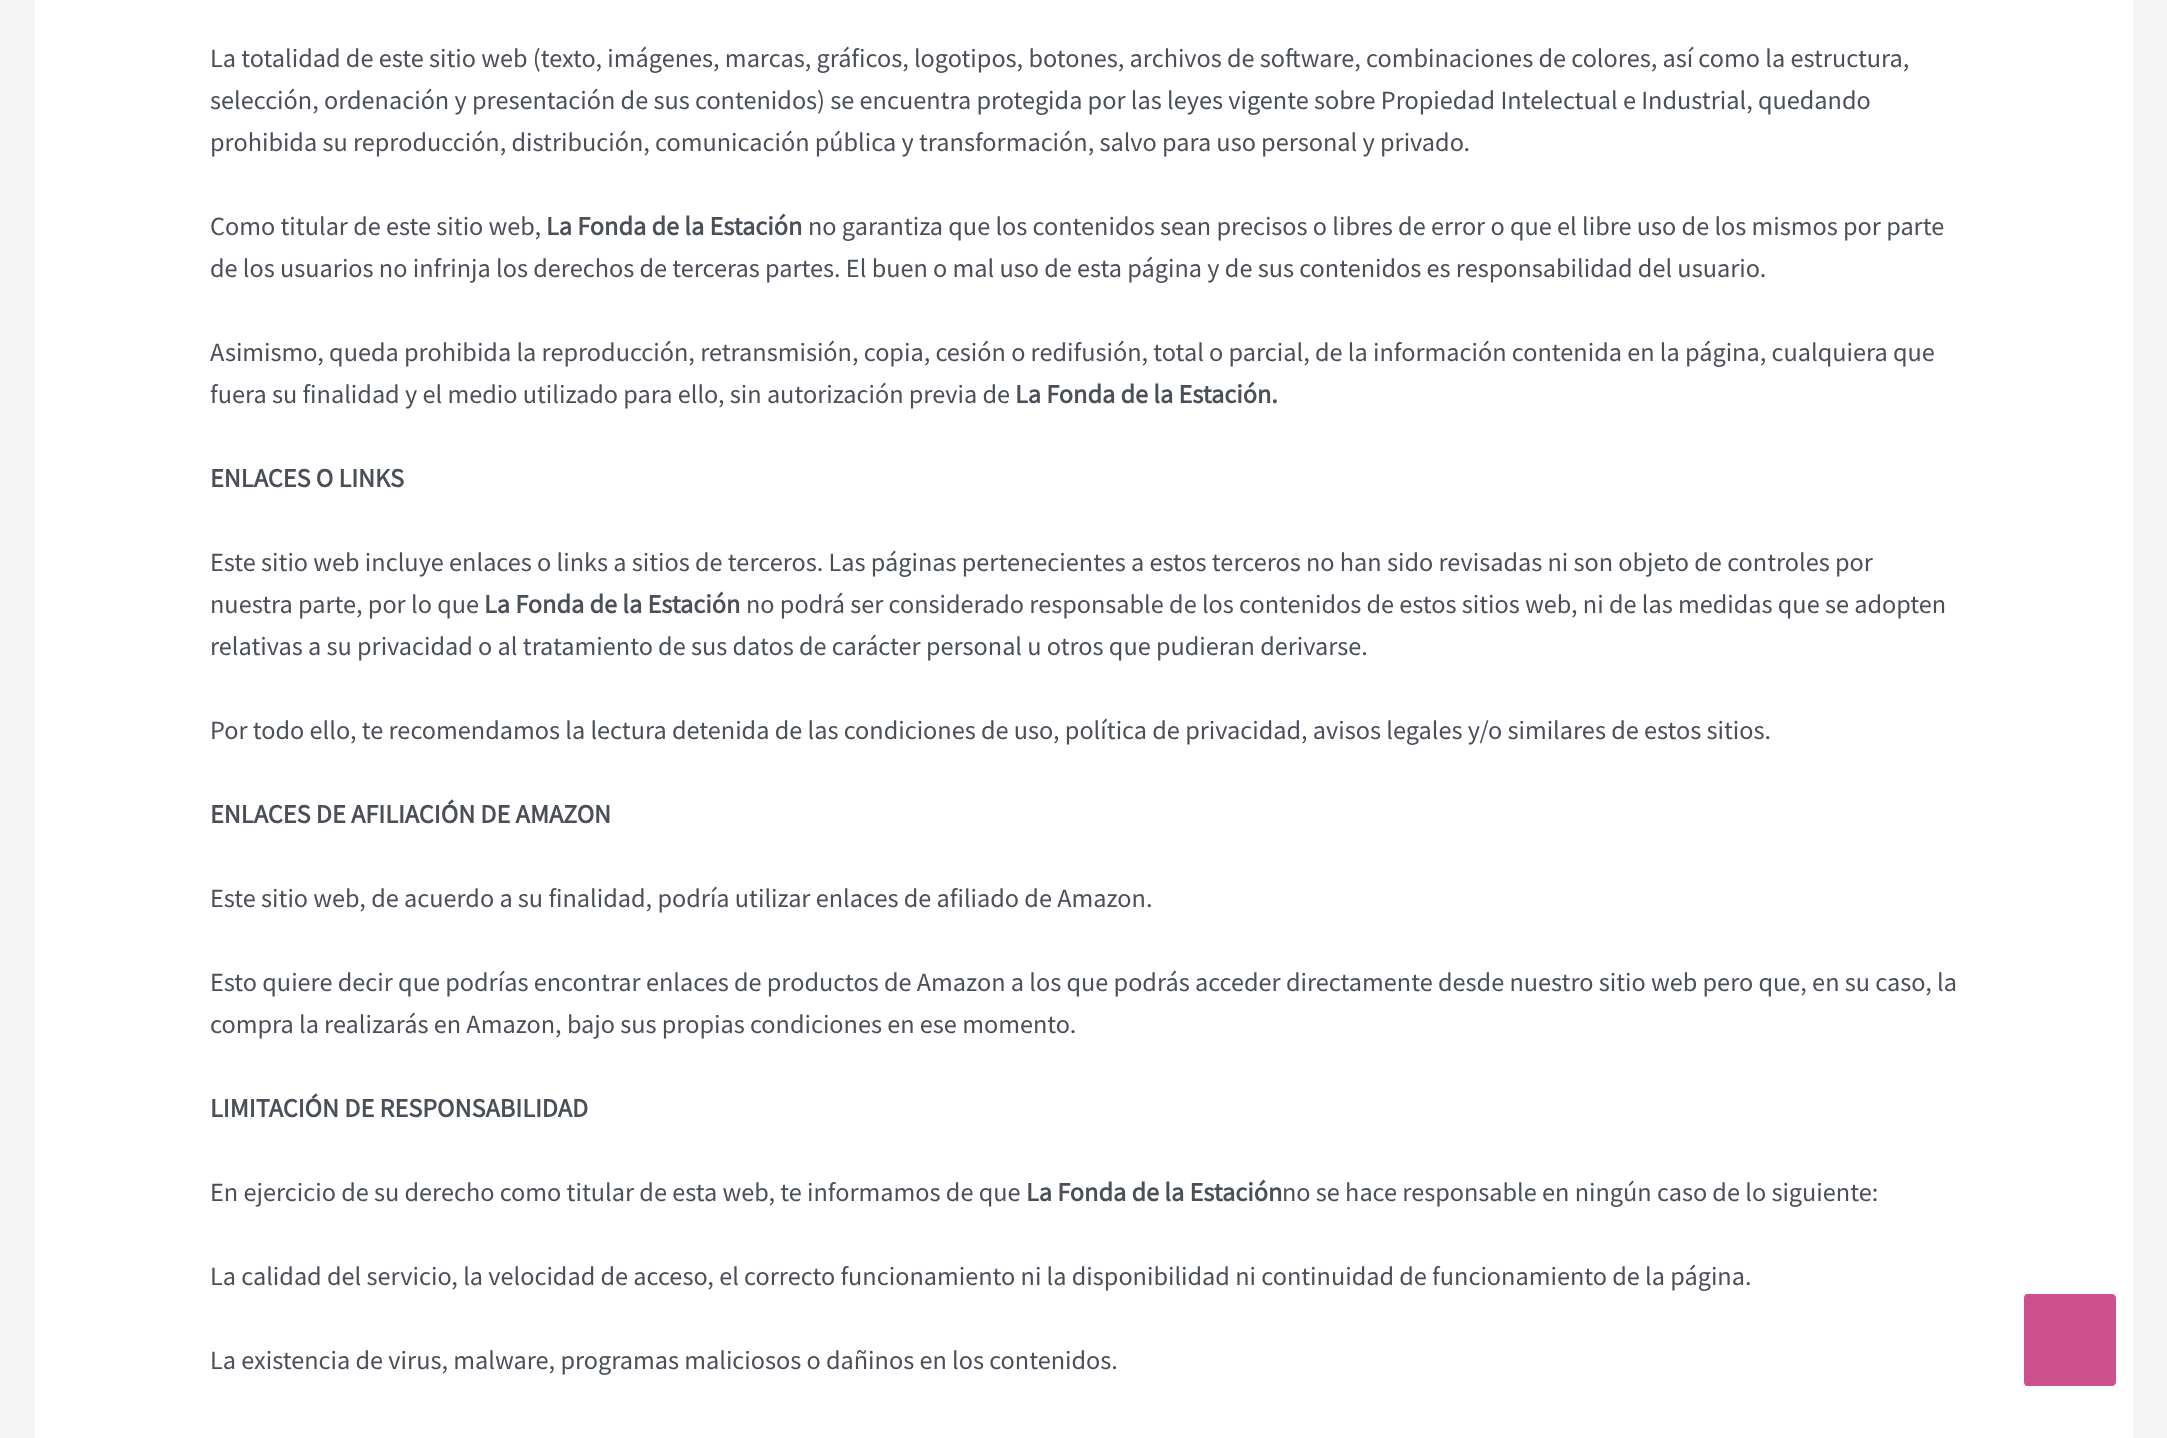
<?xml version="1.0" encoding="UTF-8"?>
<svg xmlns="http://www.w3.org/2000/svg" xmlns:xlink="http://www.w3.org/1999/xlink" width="2167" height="1438">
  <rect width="100%" height="100%" fill="#f5f5f5" />
  <rect x="35" width="2098" height="1438" fill="#ffffff" />
  <path d="M 2112 1386 h -85 c -2 0 -3 -2 -3 -4 v -84 c 0 -2 1 -4 3 -4 h 85 c 2 0 4 2 4 4 v 84 c 0 2 -2 4 -4 4 z" fill="#cc518c" />
  <text x="210" y="67" style="font-family: Source Sans Pro; font-size: 26.25px; fill: #4b4f58">La totalidad de este sitio web (texto, imágenes, marcas, gráficos, logotipos, botones, archivos de software, combinaciones de colores, así como la estructura,</text>
  <text x="210" y="109" style="font-family: Source Sans Pro; font-size: 26.25px; fill: #4b4f58">selección, ordenación y presentación de sus contenidos) se encuentra protegida por las leyes vigente sobre Propiedad Intelectual e Industrial, quedando</text>
  <text x="210" y="151" style="font-family: Source Sans Pro; font-size: 26.25px; fill: #4b4f58">prohibida su reproducción, distribución, comunicación pública y transformación, salvo para uso personal y privado.</text>
  <text x="210" y="235" style="font-family: Source Sans Pro; font-size: 26.25px; fill: #4b4f58">Como titular de este sitio web,</text>
  <text x="546" y="235" style="font-family: Source Sans Pro; font-size: 26.25px; font-weight: bold; fill: #4b4f58">La Fonda de la Estación</text>
  <text x="808" y="235" style="font-family: Source Sans Pro; font-size: 26.25px; fill: #4b4f58">no garantiza que los contenidos sean precisos o libres de error o que el libre uso de los mismos por parte</text>
  <text x="210" y="277" style="font-family: Source Sans Pro; font-size: 26.25px; fill: #4b4f58">de los usuarios no infrinja los derechos de terceras partes. El buen o mal uso de esta página y de sus contenidos es responsabilidad del usuario.</text>
  <text x="210" y="361" style="font-family: Source Sans Pro; font-size: 26.25px; fill: #4b4f58">Asimismo, queda prohibida la reproducción, retransmisión, copia, cesión o redifusión, total o parcial, de la información contenida en la página, cualquiera que</text>
  <text x="210" y="403" style="font-family: Source Sans Pro; font-size: 26.25px; fill: #4b4f58">fuera su finalidad y el medio utilizado para ello, sin autorización previa de</text>
  <text x="1015" y="403" style="font-family: Source Sans Pro; font-size: 26.25px; font-weight: bold; fill: #4b4f58">La Fonda de la Estación.</text>
  <text x="210" y="487" style="font-family: Source Sans Pro; font-size: 26.25px; font-weight: bold; fill: #4b4f58">ENLACES O LINKS</text>
  <text x="210" y="571" style="font-family: Source Sans Pro; font-size: 26.25px; fill: #4b4f58">Este sitio web incluye enlaces o links a sitios de terceros. Las páginas pertenecientes a estos terceros no han sido revisadas ni son objeto de controles por</text>
  <text x="210" y="613" style="font-family: Source Sans Pro; font-size: 26.25px; fill: #4b4f58">nuestra parte, por lo que</text>
  <text x="484" y="613" style="font-family: Source Sans Pro; font-size: 26.25px; font-weight: bold; fill: #4b4f58">La Fonda de la Estación</text>
  <text x="746" y="613" style="font-family: Source Sans Pro; font-size: 26.25px; fill: #4b4f58">no podrá ser considerado responsable de los contenidos de estos sitios web, ni de las medidas que se adopten</text>
  <text x="210" y="655" style="font-family: Source Sans Pro; font-size: 26.25px; fill: #4b4f58">relativas a su privacidad o al tratamiento de sus datos de carácter personal u otros que pudieran derivarse.</text>
  <text x="210" y="739" style="font-family: Source Sans Pro; font-size: 26.25px; fill: #4b4f58">Por todo ello, te recomendamos la lectura detenida de las condiciones de uso, política de privacidad, avisos legales y/o similares de estos sitios.</text>
  <text x="210" y="823" style="font-family: Source Sans Pro; font-size: 26.25px; font-weight: bold; fill: #4b4f58">ENLACES DE AFILIACIÓN DE AMAZON</text>
  <text x="210" y="907" style="font-family: Source Sans Pro; font-size: 26.25px; fill: #4b4f58">Este sitio web, de acuerdo a su finalidad, podría utilizar enlaces de afiliado de Amazon.</text>
  <text x="210" y="991" style="font-family: Source Sans Pro; font-size: 26.25px; fill: #4b4f58">Esto quiere decir que podrías encontrar enlaces de productos de Amazon a los que podrás acceder directamente desde nuestro sitio web pero que, en su caso, la</text>
  <text x="210" y="1033" style="font-family: Source Sans Pro; font-size: 26.25px; fill: #4b4f58">compra la realizarás en Amazon, bajo sus propias condiciones en ese momento.</text>
  <text x="210" y="1117" style="font-family: Source Sans Pro; font-size: 26.25px; font-weight: bold; fill: #4b4f58">LIMITACIÓN DE RESPONSABILIDAD</text>
  <text x="210" y="1201" style="font-family: Source Sans Pro; font-size: 26.25px; fill: #4b4f58">En ejercicio de su derecho como titular de esta web, te informamos de que</text>
  <text x="1026" y="1201" style="font-family: Source Sans Pro; font-size: 26.25px; font-weight: bold; fill: #4b4f58">La Fonda de la Estación</text>
  <text x="1282" y="1201" style="font-family: Source Sans Pro; font-size: 26.25px; fill: #4b4f58">no se hace responsable en ningún caso de lo siguiente:</text>
  <text x="210" y="1285" style="font-family: Source Sans Pro; font-size: 26.25px; fill: #4b4f58">La calidad del servicio, la velocidad de acceso, el correcto funcionamiento ni la disponibilidad ni continuidad de funcionamiento de la página.</text>
  <text x="210" y="1369" style="font-family: Source Sans Pro; font-size: 26.25px; fill: #4b4f58">La existencia de virus, malware, programas maliciosos o dañinos en los contenidos.</text>
</svg>
